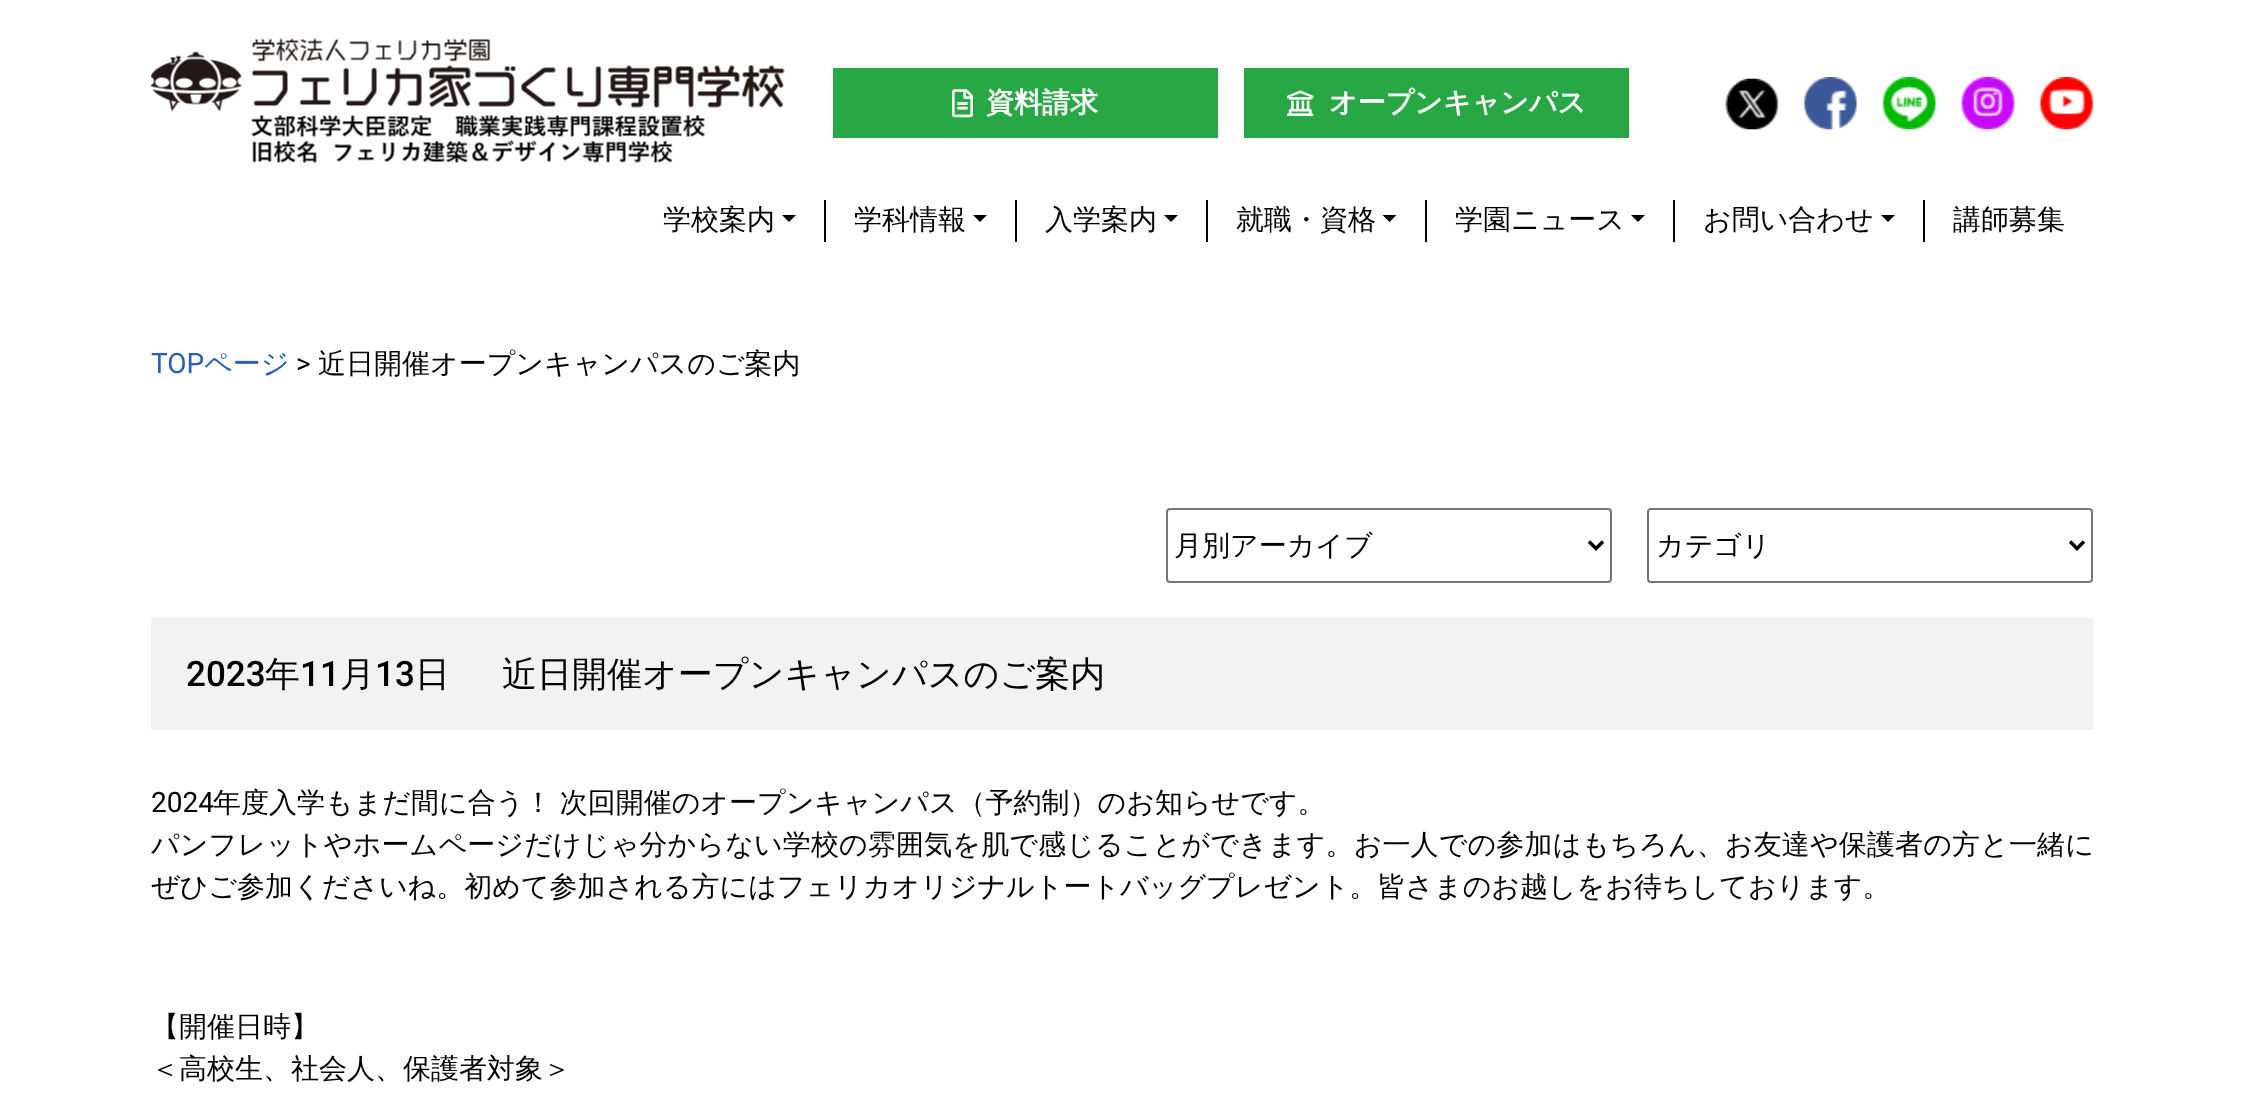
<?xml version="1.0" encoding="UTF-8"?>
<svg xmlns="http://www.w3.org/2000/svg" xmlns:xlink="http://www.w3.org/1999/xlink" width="2242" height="1094">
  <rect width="100%" height="100%" fill="#ffffff" />
  <image x="151" y="38" width="634" height="125" xlink:href="image1.png" />
  <rect x="833" y="68" width="385" height="70" fill="#28a745" />
  <image x="952" y="89" width="21" height="29" xlink:href="image2.png" />
  <rect x="1244" y="68" width="385" height="70" fill="#28a745" />
  <image x="1287" y="90" width="27" height="26" xlink:href="image3.png" />
  <image x="1725" y="78" width="54" height="52" xlink:href="image4.png" />
  <image x="1803" y="77" width="55" height="53" xlink:href="image5.png" />
  <image x="1882" y="77" width="54" height="53" xlink:href="image6.png" />
  <image x="1961" y="77" width="54" height="53" xlink:href="image7.png" />
  <image x="2040" y="77" width="54" height="53" xlink:href="image8.png" />
  <path d="M 782 215 h 14 l -7 7 z" fill="#000000" />
  <rect x="824" y="200" width="2" height="42" fill="#000000" />
  <path d="M 973 215 h 14 l -7 7 z" fill="#000000" />
  <rect x="1015" y="200" width="2" height="42" fill="#000000" />
  <path d="M 1164 215 h 14 l -7 7 z" fill="#000000" />
  <rect x="1206" y="200" width="2" height="42" fill="#000000" />
  <path d="M 1382.5 215 h 14 l -7 7 z" fill="#000000" />
  <rect x="1425" y="200" width="2" height="42" fill="#000000" />
  <path d="M 1631 215 h 14 l -7 7 z" fill="#000000" />
  <rect x="1673" y="200" width="2" height="42" fill="#000000" />
  <path d="M 1881 215 h 14 l -7 7 z" fill="#000000" />
  <rect x="1923" y="200" width="2" height="42" fill="#000000" />
  <rect x="1167" y="509" width="444" height="73" rx="3" fill="none" stroke="#767676" stroke-width="2" />
  <path d="M 1589 541.5 l 7 7 l 7 -7" fill="none" stroke="#000000" stroke-width="3.5" />
  <rect x="1648" y="509" width="444" height="73" rx="3" fill="none" stroke="#767676" stroke-width="2" />
  <path d="M 2070 541.5 l 7 7 l 7 -7" fill="none" stroke="#000000" stroke-width="3.5" />
  <rect x="151" y="618" width="1942" height="112" fill="#f2f2f2" />
  <text x="986" y="112" style="font-family: WenQuanYi Zen Hei; font-size: 28px; font-weight: bold; fill: #ffffff">資料請求</text>
  <text x="1329" y="112" style="font-family: WenQuanYi Zen Hei; font-size: 28px; font-weight: bold; fill: #ffffff">オープンキャンパス</text>
  <text x="663" y="229" style="font-family: WenQuanYi Zen Hei; font-size: 28px; font-weight: 500; fill: #000000">学校案内</text>
  <text x="854" y="229" style="font-family: WenQuanYi Zen Hei; font-size: 28px; font-weight: 500; fill: #000000">学科情報</text>
  <text x="1045" y="229" style="font-family: WenQuanYi Zen Hei; font-size: 28px; font-weight: 500; fill: #000000">入学案内</text>
  <text x="1236" y="229" style="font-family: WenQuanYi Zen Hei; font-size: 28px; font-weight: 500; fill: #000000">就職・資格</text>
  <text x="1455" y="229" style="font-family: WenQuanYi Zen Hei; font-size: 28px; font-weight: 500; fill: #000000">学園ニュース</text>
  <text x="1703" y="229" style="font-family: WenQuanYi Zen Hei; font-size: 28px; font-weight: 500; fill: #000000">お問い合わせ</text>
  <text x="1953" y="229" style="font-family: WenQuanYi Zen Hei; font-size: 28px; font-weight: 500; fill: #000000">講師募集</text>
  <text x="151" y="373" style="font-family: Roboto; font-size: 28px; fill: #255eb9">TOP</text>
  <text x="204" y="373" style="font-family: WenQuanYi Zen Hei; font-size: 28px; font-weight: 500; fill: #255eb9">ページ</text>
  <text x="296" y="373" style="font-family: Roboto; font-size: 28px; fill: #000000">&gt;</text>
  <text x="318" y="373" style="font-family: WenQuanYi Zen Hei; font-size: 28px; font-weight: 500; fill: #000000">近日開催オープンキャンパスのご案内</text>
  <text x="1174" y="555" style="font-family: WenQuanYi Zen Hei; font-size: 28px; font-weight: 500; fill: #000000">月別アーカイブ</text>
  <text x="1656" y="555" style="font-family: WenQuanYi Zen Hei; font-size: 28px; font-weight: 500; fill: #000000">カテゴリ</text>
  <text x="186" y="686" style="font-family: Roboto; font-size: 35px; font-weight: 500; fill: #000000">2023</text>
  <text x="265" y="686" style="font-family: WenQuanYi Zen Hei; font-size: 35px; font-weight: 500; fill: #000000">年</text>
  <text x="300" y="686" style="font-family: Roboto; font-size: 35px; font-weight: 500; fill: #000000">11</text>
  <text x="340" y="686" style="font-family: WenQuanYi Zen Hei; font-size: 35px; font-weight: 500; fill: #000000">月</text>
  <text x="375" y="686" style="font-family: Roboto; font-size: 35px; font-weight: 500; fill: #000000">13</text>
  <text x="415" y="686" style="font-family: WenQuanYi Zen Hei; font-size: 35px; font-weight: 500; fill: #000000">日</text>
  <text x="502" y="686" style="font-family: WenQuanYi Zen Hei; font-size: 35px; font-weight: 500; fill: #000000">近日開催オープンキャンパスのご案内</text>
  <text x="151" y="812" style="font-family: Roboto; font-size: 28px; fill: #000000">2024</text>
  <text x="213" y="812" word-spacing="-1" style="font-family: WenQuanYi Zen Hei; font-size: 28px; font-weight: 500; fill: #000000">年度入学もまだ間に合う！ 次回開催のオープンキャンパス（予約制）のお知らせです。</text>
  <text x="151" y="854" style="font-family: WenQuanYi Zen Hei; font-size: 28px; font-weight: 500; letter-spacing: 0.15px; fill: #000000">パンフレットやホームページだけじゃ分からない学校の雰囲気を肌で感じることができます。お一人での参加はもちろん、お友達や保護者の方と一緒に</text>
  <text x="151" y="896" style="font-family: WenQuanYi Zen Hei; font-size: 28px; font-weight: 500; fill: #000000">ぜひご参加くださいね。初めて参加される方にはフェリカオリジナルトートバッグプレゼント。皆さまのお越しをお待ちしております。</text>
  <text x="151" y="1036" style="font-family: WenQuanYi Zen Hei; font-size: 28px; font-weight: 500; fill: #000000">【開催日時】</text>
  <text x="151" y="1078" style="font-family: WenQuanYi Zen Hei; font-size: 28px; font-weight: 500; fill: #000000">＜高校生、社会人、保護者対象＞</text>
</svg>
